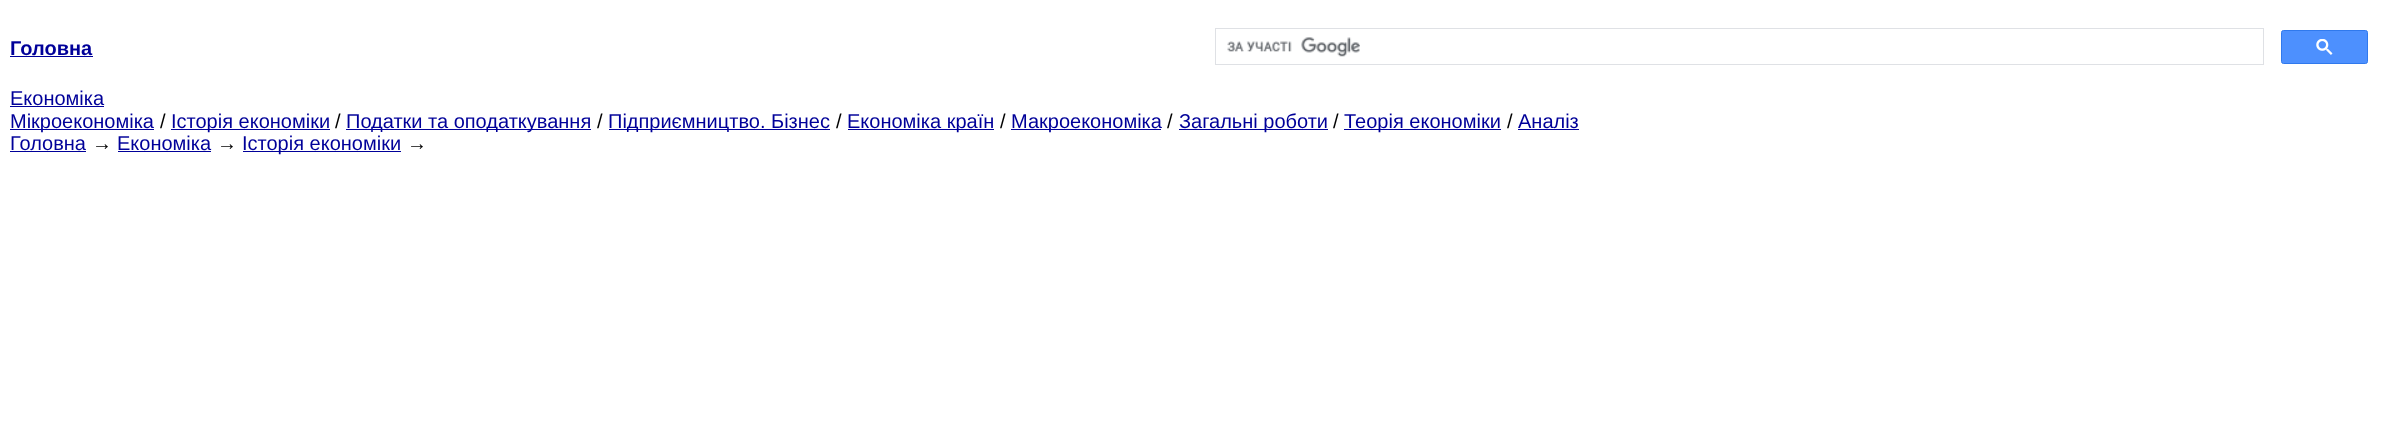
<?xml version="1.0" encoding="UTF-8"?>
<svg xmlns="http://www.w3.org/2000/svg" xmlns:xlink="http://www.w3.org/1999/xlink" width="2394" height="438">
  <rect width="100%" height="100%" fill="#ffffff" />
  <rect x="10" y="56" width="83" height="1" fill="#000099" />
  <rect x="1215.5" y="28.5" width="1048" height="36" fill="none" stroke="#dfe1e5" />
  <image x="1227" y="37" width="133" height="20" xlink:href="image1.png" />
  <rect x="2281.5" y="30.5" width="86" height="33" rx="2" fill="#4d90fe" stroke="#3079ed" />
  <image x="2316" y="39" width="17" height="16" xlink:href="image2.png" />
  <rect x="10" y="106" width="94" height="1" fill="#000099" />
  <rect x="10" y="129" width="144" height="1" fill="#000099" />
  <rect x="171" y="129" width="159" height="1" fill="#000099" />
  <rect x="346" y="129" width="245" height="1" fill="#000099" />
  <rect x="609" y="129" width="221" height="1" fill="#000099" />
  <rect x="848" y="129" width="146" height="1" fill="#000099" />
  <rect x="1011" y="129" width="150" height="1" fill="#000099" />
  <rect x="1179" y="129" width="149" height="1" fill="#000099" />
  <rect x="1344" y="129" width="157" height="1" fill="#000099" />
  <rect x="1518" y="129" width="61" height="1" fill="#000099" />
  <rect x="10" y="151" width="76" height="1" fill="#000099" />
  <rect x="118" y="151" width="93" height="1" fill="#000099" />
  <rect x="243" y="151" width="158" height="1" fill="#000099" />
  <text x="10" y="55" style="font-family: Liberation Sans; font-size: 20px; font-weight: bold; fill: #000099">Головна</text>
  <text x="10" y="105" style="font-family: Liberation Sans; font-size: 20px; fill: #000099">Економіка</text>
  <text x="10" y="128" style="font-family: Liberation Sans; font-size: 20px; fill: #000099">Мікроекономіка</text>
  <text x="160" y="128" style="font-family: Liberation Sans; font-size: 20px; fill: #000000">/</text>
  <text x="171" y="128" style="font-family: Liberation Sans; font-size: 20px; fill: #000099">Історія економіки</text>
  <text x="335" y="128" style="font-family: Liberation Sans; font-size: 20px; fill: #000000">/</text>
  <text x="346" y="128" style="font-family: Liberation Sans; font-size: 20px; fill: #000099">Податки та оподаткування</text>
  <text x="597" y="128" style="font-family: Liberation Sans; font-size: 20px; fill: #000000">/</text>
  <text x="608" y="128" style="font-family: Liberation Sans; font-size: 20px; fill: #000099">Підприємництво. Бізнес</text>
  <text x="836" y="128" style="font-family: Liberation Sans; font-size: 20px; fill: #000000">/</text>
  <text x="847" y="128" style="font-family: Liberation Sans; font-size: 20px; fill: #000099">Економіка країн</text>
  <text x="1000" y="128" style="font-family: Liberation Sans; font-size: 20px; fill: #000000">/</text>
  <text x="1011" y="128" style="font-family: Liberation Sans; font-size: 20px; fill: #000099">Макроекономіка</text>
  <text x="1167" y="128" style="font-family: Liberation Sans; font-size: 20px; fill: #000000">/</text>
  <text x="1179" y="128" style="font-family: Liberation Sans; font-size: 20px; fill: #000099">Загальні роботи</text>
  <text x="1333" y="128" style="font-family: Liberation Sans; font-size: 20px; fill: #000000">/</text>
  <text x="1344" y="128" style="font-family: Liberation Sans; font-size: 20px; fill: #000099">Теорія економіки</text>
  <text x="1507" y="128" style="font-family: Liberation Sans; font-size: 20px; fill: #000000">/</text>
  <text x="1518" y="128" style="font-family: Liberation Sans; font-size: 20px; fill: #000099">Аналіз</text>
  <text x="10" y="150" style="font-family: Liberation Sans; font-size: 20px; fill: #000099">Головна</text>
  <text x="92" y="150" style="font-family: Liberation Sans; font-size: 20px; fill: #000000">→</text>
  <text x="117" y="150" style="font-family: Liberation Sans; font-size: 20px; fill: #000099">Економіка</text>
  <text x="217" y="150" style="font-family: Liberation Sans; font-size: 20px; fill: #000000">→</text>
  <text x="242" y="150" style="font-family: Liberation Sans; font-size: 20px; fill: #000099">Історія економіки</text>
  <text x="407" y="150" style="font-family: Liberation Sans; font-size: 20px; fill: #000000">→</text>
</svg>
